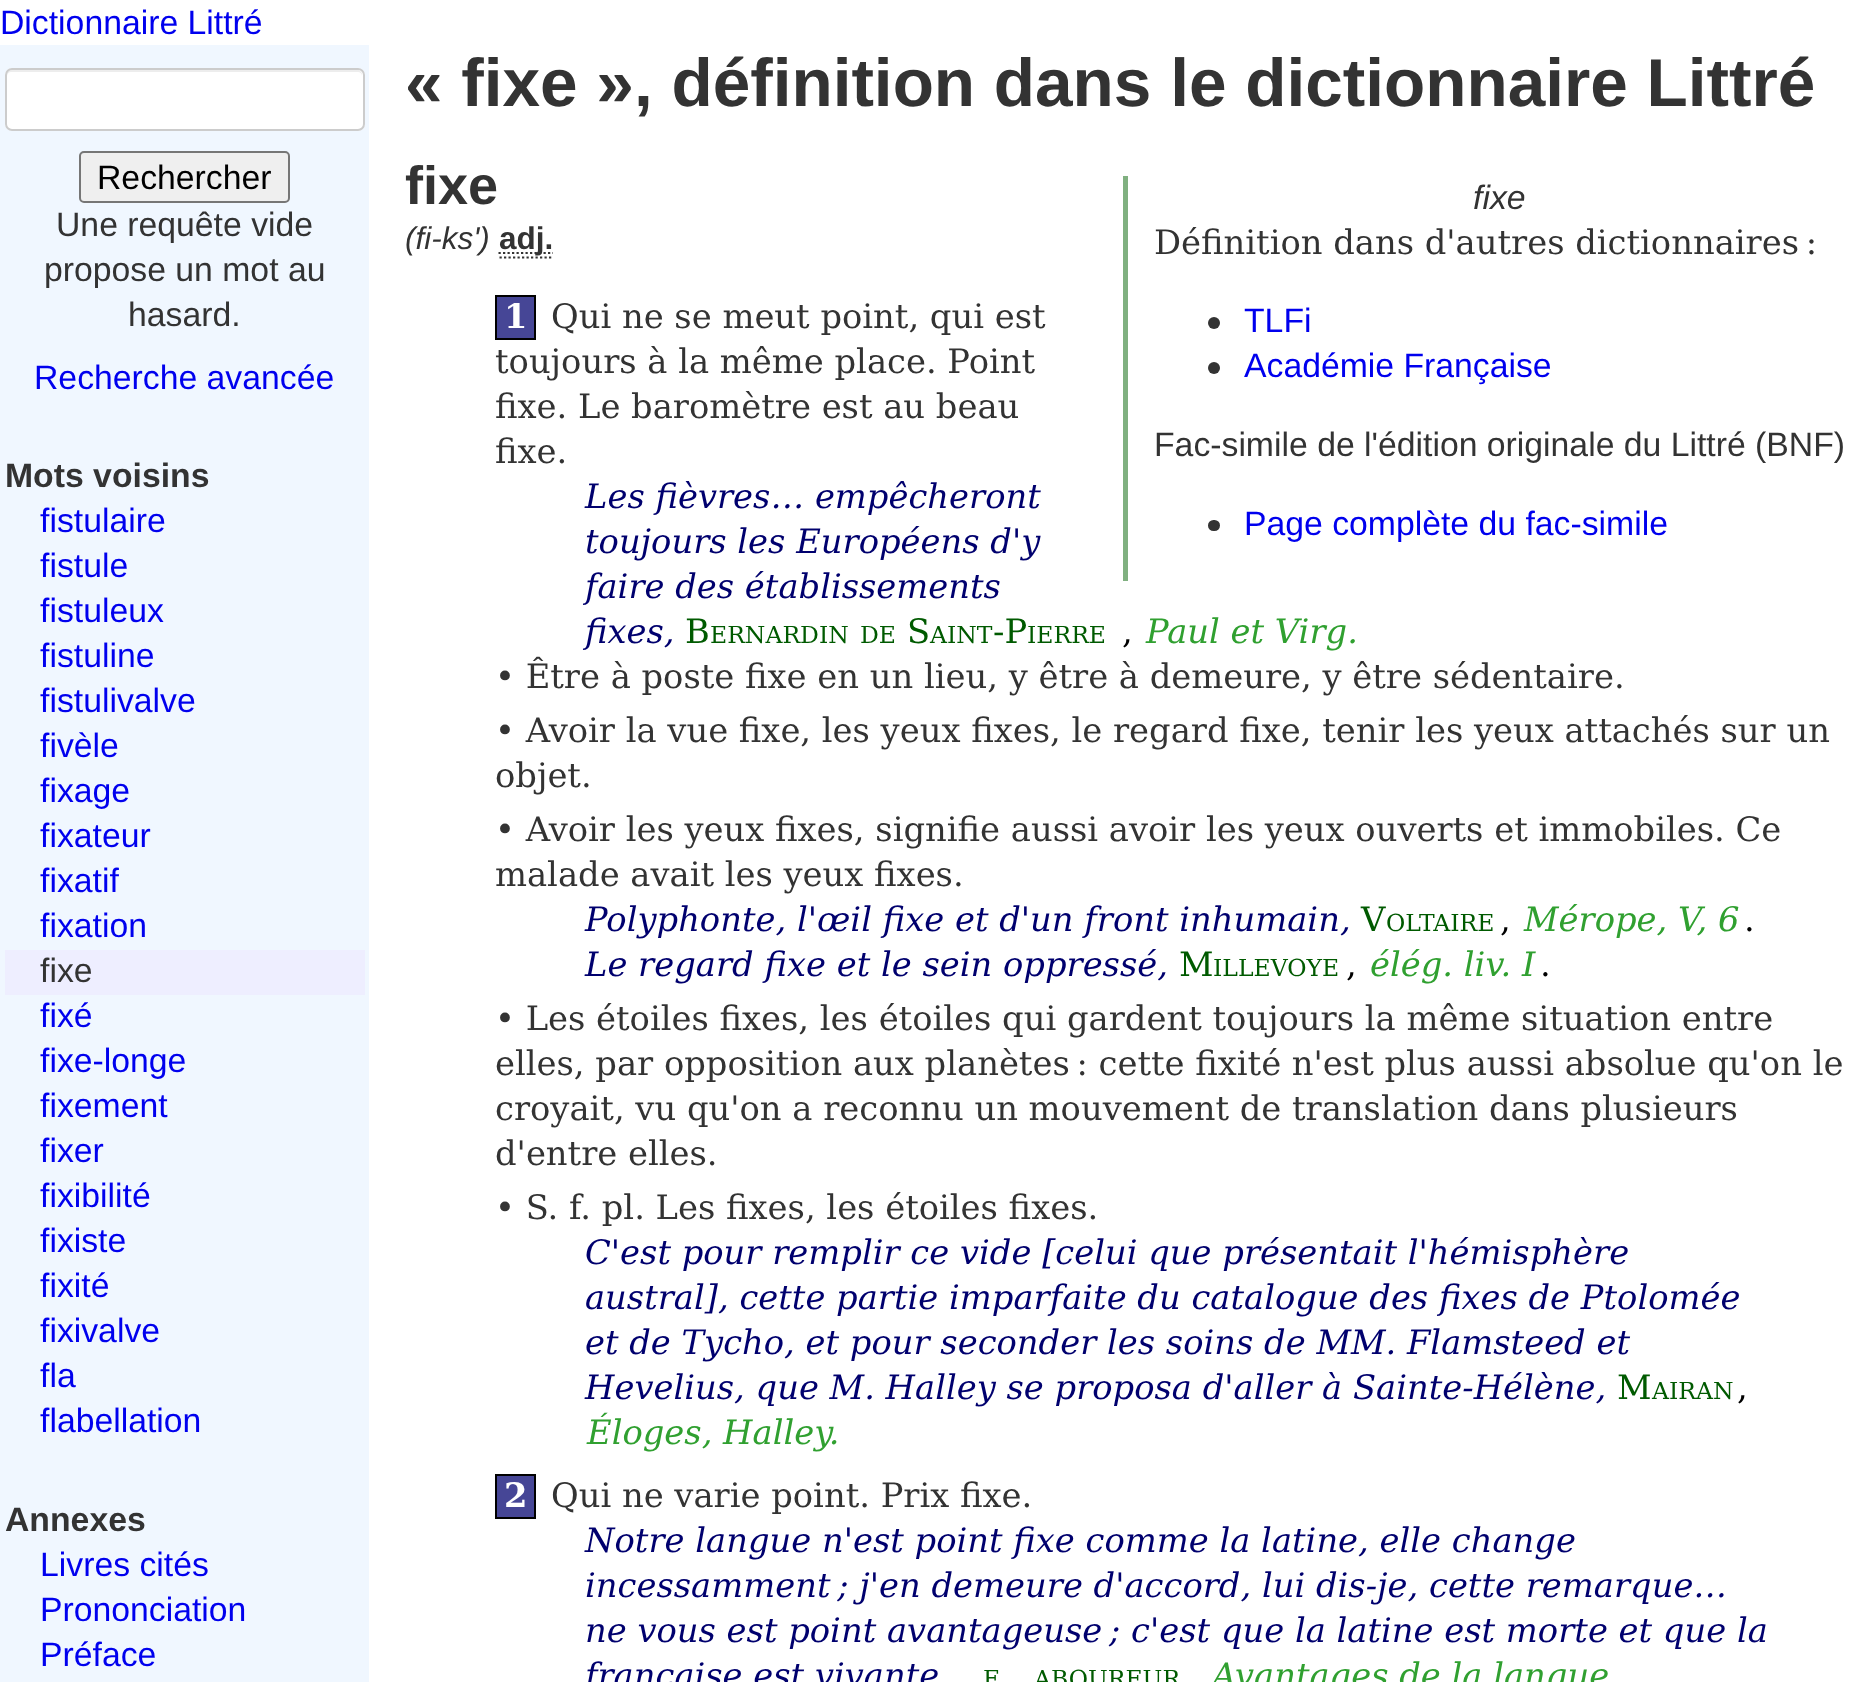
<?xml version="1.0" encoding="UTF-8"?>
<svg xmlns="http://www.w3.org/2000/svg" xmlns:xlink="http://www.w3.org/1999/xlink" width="1863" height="1682">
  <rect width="100%" height="100%" fill="#ffffff" />
  <rect y="45" width="369" height="1637" fill="#f0f7ff" />
  <rect x="5" y="68" width="360" height="63" rx="7" fill="#ffffff" />
  <path d="M 11 72 h 347 c 2 0 4 2 4 4 v -1 c 0 -3 -2 -5 -5 -5 h -345 c -3 0 -5 2 -5 5 v 1 c 0 -2 2 -4 4 -4 z" fill="#ededed" />
  <rect x="6" y="69" width="358" height="61" rx="6" fill="none" stroke="#cccccc" stroke-width="2" />
  <rect x="80" y="152" width="209" height="50" rx="4" fill="#efefef" stroke="#767676" stroke-width="2" />
  <rect x="5" y="950" width="360" height="45" fill="#eeeeff" />
  <path d="M 499.5 257.5 h 54 m -55 -4.5 h 54.5" fill="none" stroke="#333333" stroke-width="2.2" stroke-dasharray="2.25 2.25" />
  <rect x="496" y="296" width="39" height="43" fill="#464696" stroke="#000000" stroke-width="2" />
  <rect x="496" y="1475" width="39" height="43" fill="#464696" stroke="#000000" stroke-width="2" />
  <rect x="1123" y="176" width="5" height="405" fill="#80b080" />
  <circle cx="1214" cy="323" r="6" fill="#333333" />
  <circle cx="1214" cy="368" r="6" fill="#333333" />
  <rect x="1208" y="520" width="12" height="11" rx="5.5" fill="#333333" />
  <text x="0" y="34" style="font-family: Liberation Sans; font-size: 33.75px; fill: #0000ee">Dictionnaire Littré</text>
  <text x="97" y="189" style="font-family: Liberation Sans; font-size: 33.75px; fill: #000000">Rechercher</text>
  <text x="56" y="236" style="font-family: Liberation Sans; font-size: 33.75px; fill: #333333">Une requête vide</text>
  <text x="44" y="281" style="font-family: Liberation Sans; font-size: 33.75px; fill: #333333">propose un mot au</text>
  <text x="128" y="326" style="font-family: Liberation Sans; font-size: 33.75px; fill: #333333">hasard.</text>
  <text x="34" y="389" style="font-family: Liberation Sans; font-size: 33.75px; fill: #0000ee">Recherche avancée</text>
  <text x="5" y="487" style="font-family: Liberation Sans; font-size: 33.75px; font-weight: bold; fill: #333333">Mots voisins</text>
  <text x="40" y="532" style="font-family: Liberation Sans; font-size: 33.75px; fill: #0000ee">fistulaire</text>
  <text x="40" y="577" style="font-family: Liberation Sans; font-size: 33.75px; fill: #0000ee">fistule</text>
  <text x="40" y="622" style="font-family: Liberation Sans; font-size: 33.75px; fill: #0000ee">fistuleux</text>
  <text x="40" y="667" style="font-family: Liberation Sans; font-size: 33.75px; fill: #0000ee">fistuline</text>
  <text x="40" y="712" style="font-family: Liberation Sans; font-size: 33.75px; fill: #0000ee">fistulivalve</text>
  <text x="40" y="757" style="font-family: Liberation Sans; font-size: 33.75px; fill: #0000ee">fivèle</text>
  <text x="40" y="802" style="font-family: Liberation Sans; font-size: 33.75px; fill: #0000ee">fixage</text>
  <text x="40" y="847" style="font-family: Liberation Sans; font-size: 33.75px; fill: #0000ee">fixateur</text>
  <text x="40" y="892" style="font-family: Liberation Sans; font-size: 33.75px; fill: #0000ee">fixatif</text>
  <text x="40" y="937" style="font-family: Liberation Sans; font-size: 33.75px; fill: #0000ee">fixation</text>
  <text x="40" y="982" style="font-family: Liberation Sans; font-size: 33.75px; fill: #333333">fixe</text>
  <text x="40" y="1027" style="font-family: Liberation Sans; font-size: 33.75px; fill: #0000ee">fixé</text>
  <text x="40" y="1072" style="font-family: Liberation Sans; font-size: 33.75px; fill: #0000ee">fixe-longe</text>
  <text x="40" y="1117" style="font-family: Liberation Sans; font-size: 33.75px; fill: #0000ee">fixement</text>
  <text x="40" y="1162" style="font-family: Liberation Sans; font-size: 33.75px; fill: #0000ee">fixer</text>
  <text x="40" y="1207" style="font-family: Liberation Sans; font-size: 33.75px; fill: #0000ee">fixibilité</text>
  <text x="40" y="1252" style="font-family: Liberation Sans; font-size: 33.75px; fill: #0000ee">fixiste</text>
  <text x="40" y="1297" style="font-family: Liberation Sans; font-size: 33.75px; fill: #0000ee">fixité</text>
  <text x="40" y="1342" style="font-family: Liberation Sans; font-size: 33.75px; fill: #0000ee">fixivalve</text>
  <text x="40" y="1387" style="font-family: Liberation Sans; font-size: 33.75px; fill: #0000ee">fla</text>
  <text x="40" y="1432" style="font-family: Liberation Sans; font-size: 33.75px; fill: #0000ee">flabellation</text>
  <text x="5" y="1531" style="font-family: Liberation Sans; font-size: 33.75px; font-weight: bold; fill: #333333">Annexes</text>
  <text x="40" y="1576" style="font-family: Liberation Sans; font-size: 33.75px; fill: #0000ee">Livres cités</text>
  <text x="40" y="1621" style="font-family: Liberation Sans; font-size: 33.75px; fill: #0000ee">Prononciation</text>
  <text x="40" y="1666" style="font-family: Liberation Sans; font-size: 33.75px; fill: #0000ee">Préface</text>
  <text x="405" y="106" style="font-family: Liberation Sans; font-size: 67.5px; font-weight: bold; fill: #333333">« fixe », définition dans le dictionnaire Littré</text>
  <text x="405" y="204" style="font-family: Liberation Sans; font-size: 54px; font-weight: bold; fill: #333333">fixe</text>
  <text x="405" y="249" style="font-family: Liberation Sans; font-size: 31.5px; font-style: italic; fill: #333333">(fi-ks')</text>
  <text x="499" y="249" style="font-family: Liberation Sans; font-size: 31.5px; font-weight: bold; fill: #333333">adj.</text>
  <text x="504" y="328" style="font-family: DejaVu Serif; font-size: 33.75px; font-weight: bold; fill: #ffffff">1</text>
  <text x="551" y="328" style="font-family: DejaVu Serif; font-size: 33.75px; fill: #333333">Qui ne se meut point, qui est</text>
  <text x="495" y="373" style="font-family: DejaVu Serif; font-size: 33.75px; fill: #333333">toujours à la même place. Point</text>
  <text x="495" y="418" style="font-family: DejaVu Serif; font-size: 33.75px; fill: #333333">fixe. Le baromètre est au beau</text>
  <text x="495" y="463" style="font-family: DejaVu Serif; font-size: 33.75px; fill: #333333">fixe.</text>
  <text x="585" y="508" style="font-family: DejaVu Serif; font-size: 33.75px; font-style: italic; fill: #00006e">Les fièvres… empêcheront</text>
  <text x="585" y="553" style="font-family: DejaVu Serif; font-size: 33.75px; font-style: italic; fill: #00006e">toujours les Européens d'y</text>
  <text x="585" y="598" style="font-family: DejaVu Serif; font-size: 33.75px; font-style: italic; fill: #00006e">faire des établissements</text>
  <text x="585" y="643" style="font-family: DejaVu Serif; font-size: 33.75px; font-style: italic; fill: #00006e">fixes,</text>
  <text x="685" y="643" style="font-family: DejaVu Serif; font-size: 33.75px; fill: #005a00">B</text>
  <text x="710" y="643" style="font-family: DejaVu Serif; font-size: 23.5px; fill: #005a00">ERNARDIN</text>
  <text x="860" y="643" style="font-family: DejaVu Serif; font-size: 23.5px; fill: #005a00">DE</text>
  <text x="907" y="643" style="font-family: DejaVu Serif; font-size: 33.75px; fill: #005a00">S</text>
  <text x="930" y="643" style="font-family: DejaVu Serif; font-size: 23.5px; fill: #005a00">AINT</text>
  <text x="993" y="643" style="font-family: DejaVu Serif; font-size: 33.75px; fill: #005a00">-P</text>
  <text x="1027" y="643" style="font-family: DejaVu Serif; font-size: 23.5px; fill: #005a00">IERRE</text>
  <text x="1122" y="643" style="font-family: DejaVu Serif; font-size: 33.75px; fill: #000000">,</text>
  <text x="1146" y="643" style="font-family: DejaVu Serif; font-size: 33.75px; font-style: italic; fill: #30a030">Paul et Virg.</text>
  <text x="495" y="688" style="font-family: DejaVu Serif; font-size: 33.75px; fill: #333333">• Être à poste fixe en un lieu, y être à demeure, y être sédentaire.</text>
  <text x="495" y="742" style="font-family: DejaVu Serif; font-size: 33.75px; fill: #333333">• Avoir la vue fixe, les yeux fixes, le regard fixe, tenir les yeux attachés sur un</text>
  <text x="495" y="787" style="font-family: DejaVu Serif; font-size: 33.75px; fill: #333333">objet.</text>
  <text x="495" y="841" style="font-family: DejaVu Serif; font-size: 33.75px; fill: #333333">• Avoir les yeux fixes, signifie aussi avoir les yeux ouverts et immobiles. Ce</text>
  <text x="495" y="886" style="font-family: DejaVu Serif; font-size: 33.75px; fill: #333333">malade avait les yeux fixes.</text>
  <text x="585" y="931" style="font-family: DejaVu Serif; font-size: 33.75px; font-style: italic; fill: #00006e">Polyphonte, l'œil fixe et d'un front inhumain,</text>
  <text x="1361" y="931" style="font-family: DejaVu Serif; font-size: 33.75px; fill: #005a00">V</text>
  <text x="1386" y="931" style="font-family: DejaVu Serif; font-size: 23.5px; fill: #005a00">OLTAIRE</text>
  <text x="1500" y="931" style="font-family: DejaVu Serif; font-size: 33.75px; fill: #000000">,</text>
  <text x="1524" y="931" style="font-family: DejaVu Serif; font-size: 33.75px; font-style: italic; fill: #30a030">Mérope, V, 6</text>
  <text x="1744" y="931" style="font-family: DejaVu Serif; font-size: 33.75px; fill: #000000">.</text>
  <text x="585" y="976" style="font-family: DejaVu Serif; font-size: 33.75px; font-style: italic; fill: #00006e">Le regard fixe et le sein oppressé,</text>
  <text x="1179" y="976" style="font-family: DejaVu Serif; font-size: 33.75px; fill: #005a00">M</text>
  <text x="1213" y="976" style="font-family: DejaVu Serif; font-size: 23.5px; fill: #005a00">ILLEVOYE</text>
  <text x="1346" y="976" style="font-family: DejaVu Serif; font-size: 33.75px; fill: #000000">,</text>
  <text x="1370" y="976" style="font-family: DejaVu Serif; font-size: 33.75px; font-style: italic; fill: #30a030">élég. liv. I</text>
  <text x="1540" y="976" style="font-family: DejaVu Serif; font-size: 33.75px; fill: #000000">.</text>
  <text x="495" y="1030" style="font-family: DejaVu Serif; font-size: 33.75px; fill: #333333">• Les étoiles fixes, les étoiles qui gardent toujours la même situation entre</text>
  <text x="495" y="1075" style="font-family: DejaVu Serif; font-size: 33.75px; fill: #333333">elles, par opposition aux planètes : cette fixité n'est plus aussi absolue qu'on le</text>
  <text x="495" y="1120" style="font-family: DejaVu Serif; font-size: 33.75px; fill: #333333">croyait, vu qu'on a reconnu un mouvement de translation dans plusieurs</text>
  <text x="495" y="1165" style="font-family: DejaVu Serif; font-size: 33.75px; fill: #333333">d'entre elles.</text>
  <text x="495" y="1219" style="font-family: DejaVu Serif; font-size: 33.75px; fill: #333333">• S. f. pl. Les fixes, les étoiles fixes.</text>
  <text x="585" y="1264" style="font-family: DejaVu Serif; font-size: 33.75px; font-style: italic; fill: #00006e">C'est pour remplir ce vide [celui que présentait l'hémisphère</text>
  <text x="585" y="1309" style="font-family: DejaVu Serif; font-size: 33.75px; font-style: italic; fill: #00006e">austral], cette partie imparfaite du catalogue des fixes de Ptolomée</text>
  <text x="585" y="1354" style="font-family: DejaVu Serif; font-size: 33.75px; font-style: italic; fill: #00006e">et de Tycho, et pour seconder les soins de MM. Flamsteed et</text>
  <text x="585" y="1399" style="font-family: DejaVu Serif; font-size: 33.75px; font-style: italic; fill: #00006e">Hevelius, que M. Halley se proposa d'aller à Sainte-Hélène,</text>
  <text x="1617" y="1399" style="font-family: DejaVu Serif; font-size: 33.75px; fill: #005a00">M</text>
  <text x="1652" y="1399" style="font-family: DejaVu Serif; font-size: 23.5px; fill: #005a00">AIRAN</text>
  <text x="1737" y="1399" style="font-family: DejaVu Serif; font-size: 33.75px; fill: #000000">,</text>
  <text x="587" y="1444" style="font-family: DejaVu Serif; font-size: 33.75px; font-style: italic; fill: #30a030">Éloges, Halley.</text>
  <text x="504" y="1507" style="font-family: DejaVu Serif; font-size: 33.75px; font-weight: bold; fill: #ffffff">2</text>
  <text x="551" y="1507" style="font-family: DejaVu Serif; font-size: 33.75px; fill: #333333">Qui ne varie point. Prix fixe.</text>
  <text x="585" y="1552" style="font-family: DejaVu Serif; font-size: 33.75px; font-style: italic; fill: #00006e">Notre langue n'est point fixe comme la latine, elle change</text>
  <text x="585" y="1597" style="font-family: DejaVu Serif; font-size: 33.75px; font-style: italic; fill: #00006e">incessamment ; j'en demeure d'accord, lui dis-je, cette remarque…</text>
  <text x="585" y="1642" style="font-family: DejaVu Serif; font-size: 33.75px; font-style: italic; fill: #00006e">ne vous est point avantageuse ; c'est que la latine est morte et que la</text>
  <text x="585" y="1687" style="font-family: DejaVu Serif; font-size: 33.75px; font-style: italic; fill: #00006e">française est vivante</text>
  <text x="983" y="1687" style="font-family: DejaVu Serif; font-size: 23.5px; fill: #005a00">E</text>
  <text x="1034" y="1687" style="font-family: DejaVu Serif; font-size: 23.5px; fill: #005a00">ABOUREUR</text>
  <text x="1212" y="1687" style="font-family: DejaVu Serif; font-size: 33.75px; font-style: italic; fill: #30a030">Avantages de la langue</text>
  <text x="1473" y="209" style="font-family: Liberation Sans; font-size: 33.75px; font-style: italic; fill: #333333">fixe</text>
  <text x="1154" y="254" style="font-family: DejaVu Serif; font-size: 33.75px; fill: #333333">Définition dans d'autres dictionnaires :</text>
  <text x="1244" y="332" style="font-family: Liberation Sans; font-size: 33.75px; fill: #0000ee">TLFi</text>
  <text x="1244" y="377" style="font-family: Liberation Sans; font-size: 33.75px; fill: #0000ee">Académie Française</text>
  <text x="1154" y="456" style="font-family: Liberation Sans; font-size: 33.75px; fill: #333333">Fac-simile de l'édition originale du Littré (BNF)</text>
  <text x="1244" y="535" style="font-family: Liberation Sans; font-size: 33.75px; fill: #0000ee">Page complète du fac-simile</text>
</svg>
